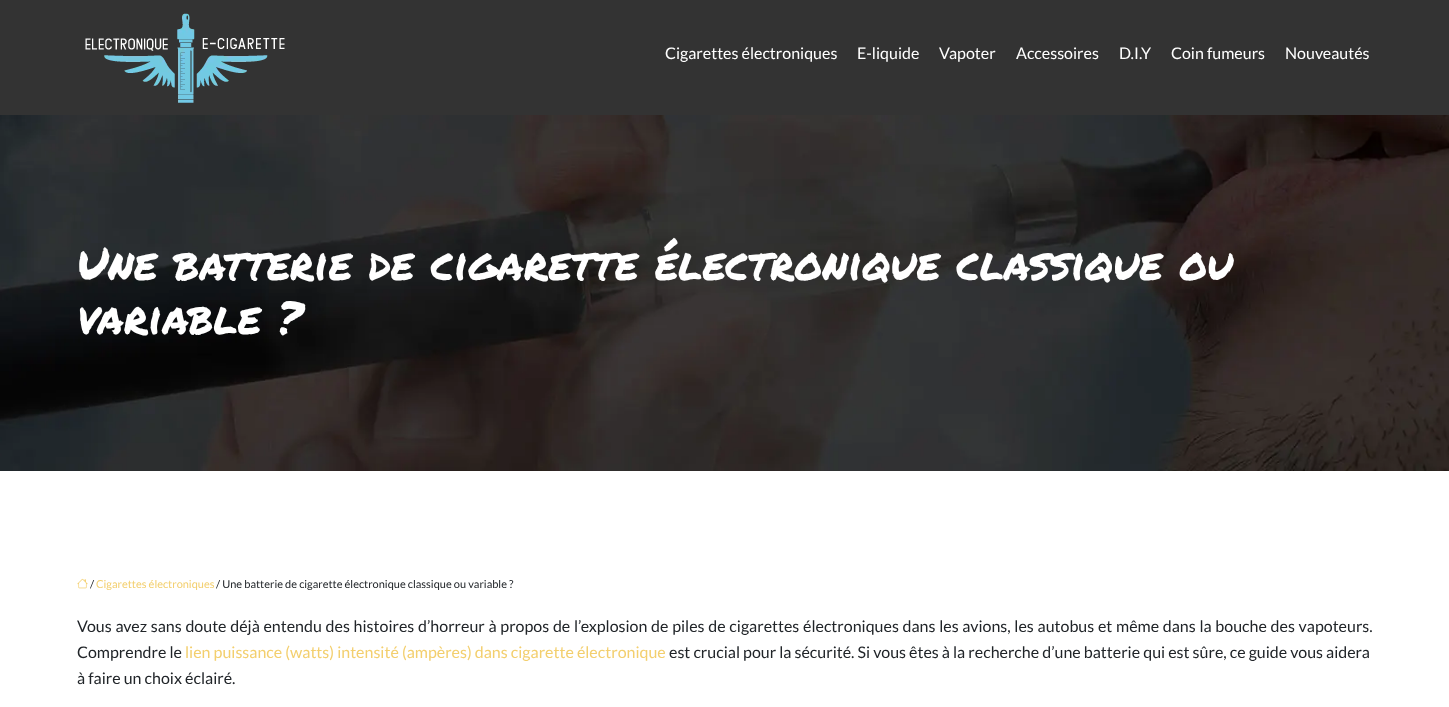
<?xml version="1.0" encoding="UTF-8"?>
<svg xmlns="http://www.w3.org/2000/svg" xmlns:xlink="http://www.w3.org/1999/xlink" width="1449" height="707">
  <rect width="100%" height="100%" fill="#ffffff" />
  <rect width="1449" height="115" fill="#333333" />
  <image x="85" y="13" width="200" height="90" xlink:href="image1.png" />
  <image x="0" y="115" width="1449" height="356" xlink:href="image2.png" />
  <image x="77" y="578" width="11" height="11" xlink:href="image3.png" />
  <text x="665" y="59" style="font-family: Lato; font-size: 16px; fill: #ffffff">Cigarettes électroniques</text>
  <text x="857" y="59" style="font-family: Lato; font-size: 16px; fill: #ffffff">E-liquide</text>
  <text x="939" y="59" style="font-family: Lato; font-size: 16px; fill: #ffffff">Vapoter</text>
  <text x="1016" y="59" style="font-family: Lato; font-size: 16px; fill: #ffffff">Accessoires</text>
  <text x="1119" y="59" style="font-family: Lato; font-size: 16px; fill: #ffffff">D.I.Y</text>
  <text x="1171" y="59" style="font-family: Lato; font-size: 16px; fill: #ffffff">Coin fumeurs</text>
  <text x="1285" y="59" style="font-family: Lato; font-size: 16px; fill: #ffffff">Nouveautés</text>
  <text x="77" y="280" style="font-family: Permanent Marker; font-size: 45px; fill: #ffffff">Une batterie de cigarette électronique classique ou</text>
  <text x="77" y="334" style="font-family: Permanent Marker; font-size: 45px; fill: #ffffff">variable ?</text>
  <text x="90" y="588" style="font-family: Lato; font-size: 11px; fill: #212529">/</text>
  <text x="96" y="588" style="font-family: Lato; font-size: 11px; fill: #f3cf6e">Cigarettes électroniques</text>
  <text x="216" y="588" style="font-family: Lato; font-size: 11px; fill: #212529">/ Une batterie de cigarette électronique classique ou variable ?</text>
  <text x="77" y="632" word-spacing="0.65" style="font-family: Lato; font-size: 16px; fill: #212529">Vous avez sans doute déjà entendu des histoires d’horreur à propos de l’explosion de piles de cigarettes électroniques dans les avions, les autobus et même dans la bouche des vapoteurs.</text>
  <text x="77" y="658" style="font-family: Lato; font-size: 16px; fill: #212529">Comprendre le</text>
  <text x="185" y="658" style="font-family: Lato; font-size: 16px; fill: #f3cf6e">lien puissance (watts) intensité (ampères) dans cigarette électronique</text>
  <text x="669" y="658" style="font-family: Lato; font-size: 16px; fill: #212529">est crucial pour la sécurité. Si vous êtes à la recherche d’une batterie qui est sûre, ce guide vous aidera</text>
  <text x="77" y="684" style="font-family: Lato; font-size: 16px; fill: #212529">à faire un choix éclairé.</text>
</svg>
